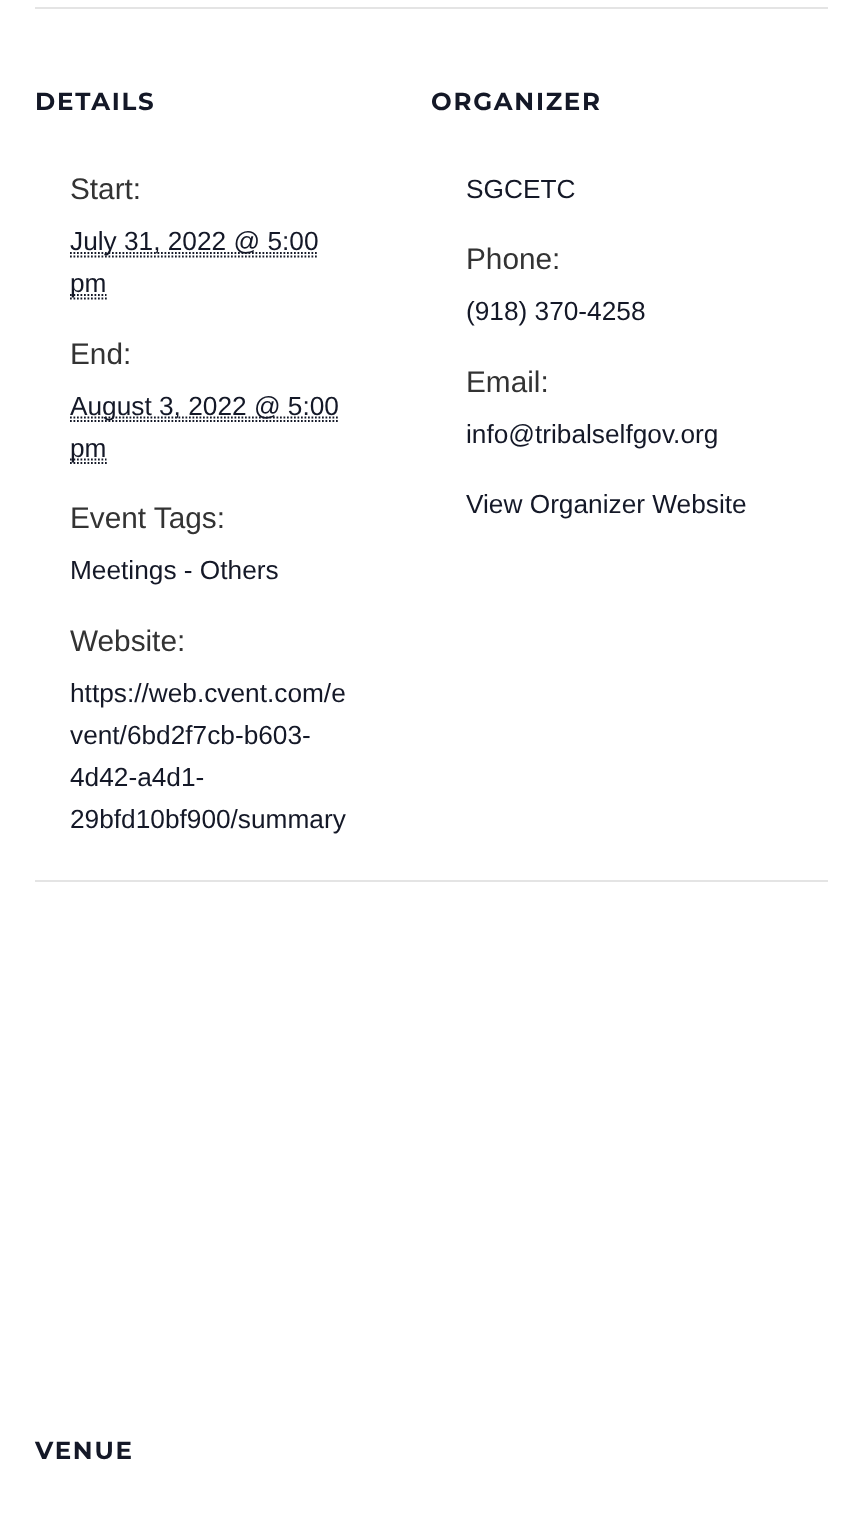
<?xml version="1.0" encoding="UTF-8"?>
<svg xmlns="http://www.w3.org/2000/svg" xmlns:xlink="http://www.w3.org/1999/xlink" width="862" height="1537">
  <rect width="100%" height="100%" fill="#ffffff" />
  <rect x="35" y="7" width="793" height="2" fill="#e4e4e4" />
  <path d="M 70 256.5 h 248.5" fill="none" stroke="#141827" stroke-width="1.8" stroke-dasharray="1.75 1.75" />
  <path d="M 70 253 h 248.5" fill="none" stroke="#141827" stroke-width="1.8" stroke-dasharray="1.75 1.75" />
  <path d="M 70 298.5 h 37" fill="none" stroke="#141827" stroke-width="1.8" stroke-dasharray="1.75 1.75" />
  <path d="M 70 295 h 36.5" fill="none" stroke="#141827" stroke-width="1.8" stroke-dasharray="1.75 1.75" />
  <path d="M 70 421 h 269.5" fill="none" stroke="#141827" stroke-width="1.8" stroke-dasharray="1.75 1.75" />
  <path d="M 70 417.5 h 269" fill="none" stroke="#141827" stroke-width="1.8" stroke-dasharray="1.75 1.75" />
  <path d="M 70 463 h 37" fill="none" stroke="#141827" stroke-width="1.8" stroke-dasharray="1.75 1.75" />
  <path d="M 70 459.5 h 36.5" fill="none" stroke="#141827" stroke-width="1.8" stroke-dasharray="1.75 1.75" />
  <rect x="35" y="880" width="793" height="2" fill="#e4e4e4" />
  <text x="35" y="110" style="font-family: Montserrat; font-size: 24.5px; font-weight: bold; letter-spacing: 1.75px; fill: #141827">DETAILS</text>
  <text x="70" y="199" style="font-family: Liberation Sans; font-size: 29.75px; fill: #333333">Start:</text>
  <text x="70" y="250" style="font-family: Liberation Sans; font-size: 26.25px; fill: #141827">July 31, 2022 @ 5:00</text>
  <text x="70" y="292" style="font-family: Liberation Sans; font-size: 26.25px; fill: #141827">pm</text>
  <text x="70" y="364" style="font-family: Liberation Sans; font-size: 29.75px; fill: #333333">End:</text>
  <text x="70" y="415" style="font-family: Liberation Sans; font-size: 26.25px; fill: #141827">August 3, 2022 @ 5:00</text>
  <text x="70" y="457" style="font-family: Liberation Sans; font-size: 26.25px; fill: #141827">pm</text>
  <text x="70" y="528" style="font-family: Liberation Sans; font-size: 29.75px; fill: #333333">Event Tags:</text>
  <text x="70" y="579" style="font-family: Liberation Sans; font-size: 26.25px; fill: #141827">Meetings - Others</text>
  <text x="70" y="651" style="font-family: Liberation Sans; font-size: 29.75px; fill: #333333">Website:</text>
  <text x="70" y="702" style="font-family: Liberation Sans; font-size: 26.25px; fill: #141827">https://web.cvent.com/e</text>
  <text x="70" y="744" style="font-family: Liberation Sans; font-size: 26.25px; fill: #141827">vent/6bd2f7cb-b603-</text>
  <text x="70" y="786" style="font-family: Liberation Sans; font-size: 26.25px; fill: #141827">4d42-a4d1-</text>
  <text x="70" y="828" style="font-family: Liberation Sans; font-size: 26.25px; fill: #141827">29bfd10bf900/summary</text>
  <text x="431" y="110" style="font-family: Montserrat; font-size: 24.5px; font-weight: bold; letter-spacing: 1.75px; fill: #141827">ORGANIZER</text>
  <text x="466" y="198" style="font-family: Liberation Sans; font-size: 26.25px; fill: #141827">SGCETC</text>
  <text x="466" y="269" style="font-family: Liberation Sans; font-size: 29.75px; fill: #333333">Phone:</text>
  <text x="466" y="320" style="font-family: Liberation Sans; font-size: 26.25px; fill: #141827">(918) 370-4258</text>
  <text x="466" y="392" style="font-family: Liberation Sans; font-size: 29.75px; fill: #333333">Email:</text>
  <text x="466" y="443" style="font-family: Liberation Sans; font-size: 26.25px; fill: #141827">info@tribalselfgov.org</text>
  <text x="466" y="513" style="font-family: Liberation Sans; font-size: 26.25px; fill: #141827">View Organizer Website</text>
  <text x="35" y="1459" style="font-family: Montserrat; font-size: 24.5px; font-weight: bold; letter-spacing: 1.75px; fill: #141827">VENUE</text>
</svg>
